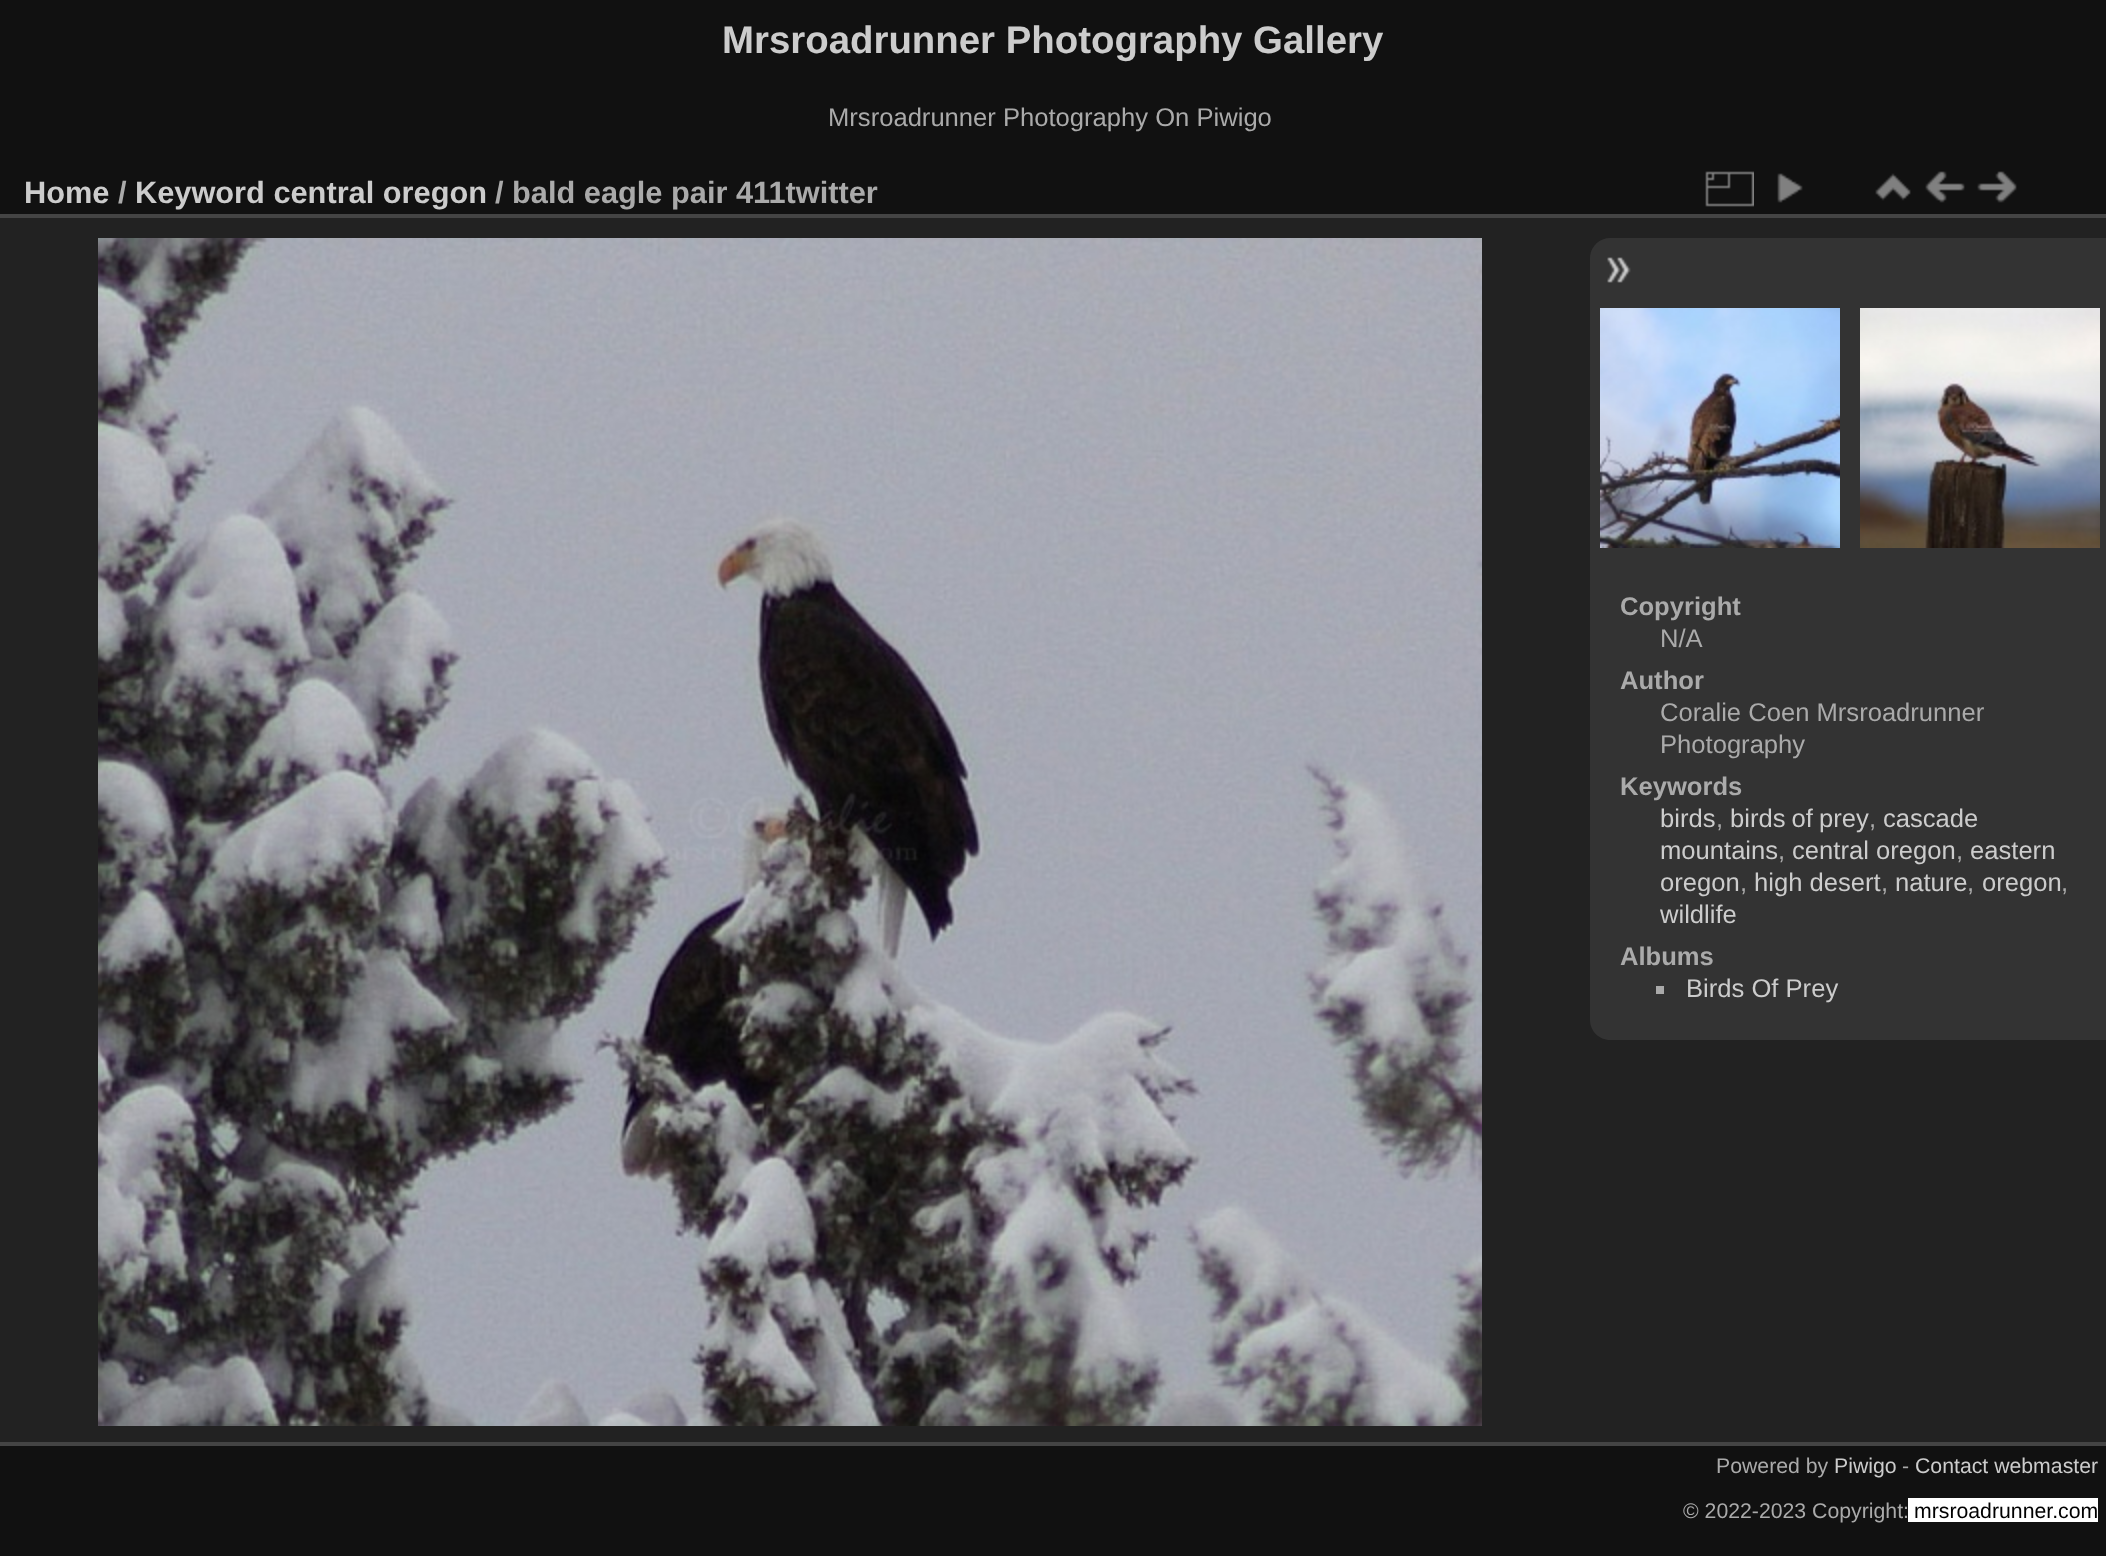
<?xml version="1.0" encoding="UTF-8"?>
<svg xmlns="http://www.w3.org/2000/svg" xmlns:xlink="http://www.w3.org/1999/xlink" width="2106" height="1556">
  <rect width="100%" height="100%" fill="#111111" />
  <rect y="218" width="2106" height="1224" fill="#222222" />
  <rect y="1442" width="2106" height="4" fill="#444444" />
  <rect y="214" width="2106" height="4" fill="#444444" />
  <image x="1705" y="171" width="49" height="36" xlink:href="image1.png" />
  <image x="1777" y="173" width="26" height="30" xlink:href="image2.png" />
  <image x="1875" y="173" width="36" height="28" xlink:href="image3.png" />
  <image x="1925" y="171" width="40" height="32" xlink:href="image4.png" />
  <image x="1977" y="171" width="40" height="32" xlink:href="image5.png" />
  <image x="98" y="238" width="1384" height="1188" xlink:href="image6.png" />
  <path d="M 1610 238 h 496 v 802 h -496 c -11 0 -20 -9 -20 -20 v -762 c 0 -11 9 -20 20 -20 z" fill="#333333" />
  <image x="1607" y="257" width="24" height="26" xlink:href="image7.png" />
  <image x="1600" y="308" width="240" height="240" xlink:href="image8.png" />
  <image x="1860" y="308" width="240" height="240" xlink:href="image9.png" />
  <rect x="1656" y="986" width="8" height="8" fill="#aaaaaa" />
  <rect x="1908" y="1498" width="190" height="24" fill="#ffffff" />
  <text x="722" y="53" style="font-family: Liberation Sans; font-size: 38.4px; font-weight: bold; fill: #cccccc">Mrsroadrunner Photography Gallery</text>
  <text x="828" y="126" style="font-family: Liberation Sans; font-size: 25.6px; fill: #aaaaaa">Mrsroadrunner Photography On Piwigo</text>
  <text x="24" y="203" style="font-family: Liberation Sans; font-size: 30.75px; font-weight: bold; fill: #cccccc">Home</text>
  <text x="118" y="203" style="font-family: Liberation Sans; font-size: 30.75px; font-weight: bold; fill: #aaaaaa">/</text>
  <text x="135" y="203" style="font-family: Liberation Sans; font-size: 30.75px; font-weight: bold; fill: #cccccc">Keyword central oregon</text>
  <text x="495" y="203" style="font-family: Liberation Sans; font-size: 30.75px; font-weight: bold; fill: #aaaaaa">/ bald eagle pair 411twitter</text>
  <text x="1620" y="615" style="font-family: Liberation Sans; font-size: 25.6px; font-weight: bold; fill: #aaaaaa">Copyright</text>
  <text x="1660" y="647" style="font-family: Liberation Sans; font-size: 25.6px; fill: #aaaaaa">N/A</text>
  <text x="1620" y="689" style="font-family: Liberation Sans; font-size: 25.6px; font-weight: bold; fill: #aaaaaa">Author</text>
  <text x="1660" y="721" style="font-family: Liberation Sans; font-size: 25.6px; fill: #aaaaaa">Coralie Coen Mrsroadrunner</text>
  <text x="1660" y="753" style="font-family: Liberation Sans; font-size: 25.6px; fill: #aaaaaa">Photography</text>
  <text x="1620" y="795" style="font-family: Liberation Sans; font-size: 25.6px; font-weight: bold; fill: #aaaaaa">Keywords</text>
  <text x="1660" y="827" style="font-family: Liberation Sans; font-size: 25.6px; fill: #cccccc">birds</text>
  <text x="1716" y="827" style="font-family: Liberation Sans; font-size: 25.6px; fill: #aaaaaa">,</text>
  <text x="1730" y="827" word-spacing="-1" style="font-family: Liberation Sans; font-size: 25.6px; fill: #cccccc">birds of prey</text>
  <text x="1869" y="827" style="font-family: Liberation Sans; font-size: 25.6px; fill: #aaaaaa">,</text>
  <text x="1883" y="827" style="font-family: Liberation Sans; font-size: 25.6px; fill: #cccccc">cascade</text>
  <text x="1660" y="859" style="font-family: Liberation Sans; font-size: 25.6px; fill: #cccccc">mountains</text>
  <text x="1778" y="859" style="font-family: Liberation Sans; font-size: 25.6px; fill: #aaaaaa">,</text>
  <text x="1792" y="859" style="font-family: Liberation Sans; font-size: 25.6px; fill: #cccccc">central oregon</text>
  <text x="1956" y="859" style="font-family: Liberation Sans; font-size: 25.6px; fill: #aaaaaa">,</text>
  <text x="1970" y="859" style="font-family: Liberation Sans; font-size: 25.6px; fill: #cccccc">eastern</text>
  <text x="1660" y="891" style="font-family: Liberation Sans; font-size: 25.6px; fill: #cccccc">oregon</text>
  <text x="1740" y="891" style="font-family: Liberation Sans; font-size: 25.6px; fill: #aaaaaa">,</text>
  <text x="1754" y="891" style="font-family: Liberation Sans; font-size: 25.6px; fill: #cccccc">high desert</text>
  <text x="1881" y="891" style="font-family: Liberation Sans; font-size: 25.6px; fill: #aaaaaa">,</text>
  <text x="1895" y="891" style="font-family: Liberation Sans; font-size: 25.6px; fill: #cccccc">nature</text>
  <text x="1967" y="891" style="font-family: Liberation Sans; font-size: 25.6px; fill: #aaaaaa">,</text>
  <text x="1982" y="891" style="font-family: Liberation Sans; font-size: 25.6px; fill: #cccccc">oregon</text>
  <text x="2061" y="891" style="font-family: Liberation Sans; font-size: 25.6px; fill: #aaaaaa">,</text>
  <text x="1660" y="923" style="font-family: Liberation Sans; font-size: 25.6px; fill: #cccccc">wildlife</text>
  <text x="1620" y="965" style="font-family: Liberation Sans; font-size: 25.6px; font-weight: bold; fill: #aaaaaa">Albums</text>
  <text x="1686" y="997" style="font-family: Liberation Sans; font-size: 25.6px; fill: #cccccc">Birds Of Prey</text>
  <text x="1716" y="1473" style="font-family: Liberation Sans; font-size: 21.25px; fill: #aaaaaa">Powered by</text>
  <text x="1834" y="1473" style="font-family: Liberation Sans; font-size: 21.25px; fill: #cccccc">Piwigo</text>
  <text x="1902" y="1473" style="font-family: Liberation Sans; font-size: 21.25px; fill: #aaaaaa">-</text>
  <text x="1915" y="1473" style="font-family: Liberation Sans; font-size: 21.25px; fill: #cccccc">Contact webmaster</text>
  <text x="1683" y="1518" style="font-family: Liberation Sans; font-size: 21.25px; fill: #aaaaaa">© 2022-2023 Copyright:</text>
  <text x="1914" y="1518" style="font-family: Liberation Sans; font-size: 21.25px; fill: #000000">mrsroadrunner.com</text>
</svg>
